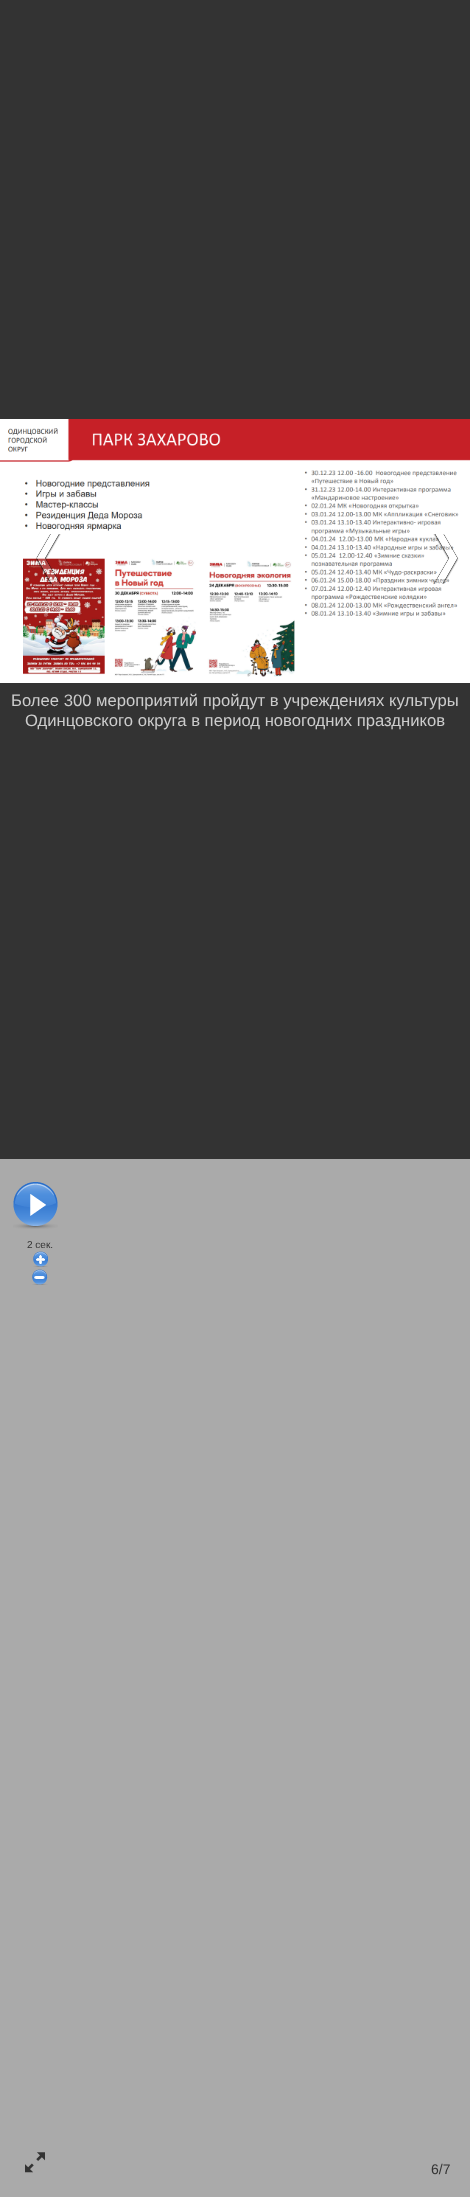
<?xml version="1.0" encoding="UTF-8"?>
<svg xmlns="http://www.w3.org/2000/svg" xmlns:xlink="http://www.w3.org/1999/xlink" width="470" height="2197">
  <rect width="100%" height="100%" fill="#333333" />
  <image x="0" y="419" width="470" height="264" xlink:href="image1.png" />
  <image x="36" y="534" width="25" height="50" xlink:href="image2.png" />
  <image x="433" y="534" width="26" height="50" xlink:href="image3.png" />
  <rect y="1159" width="470" height="1038" fill="#aaaaaa" />
  <image x="13" y="1182" width="45" height="47" xlink:href="image4.png" />
  <image x="33" y="1251" width="15" height="16" xlink:href="image5.png" />
  <image x="32" y="1269" width="16" height="16" xlink:href="image6.png" />
  <image x="25" y="2152" width="20" height="21" xlink:href="image7.png" />
  <text x="11" y="706" style="font-family: Liberation Sans; font-size: 16.65px; fill: #cccccc">Более 300 мероприятий пройдут в учреждениях культуры</text>
  <text x="25" y="726" style="font-family: Liberation Sans; font-size: 16.65px; fill: #cccccc">Одинцовского округа в период новогодних праздников</text>
  <text x="27" y="1248" style="font-family: Liberation Sans; font-size: 10px; fill: #333333">2 сек.</text>
  <text x="431" y="2174" style="font-family: Liberation Sans; font-size: 14px; fill: #333333">6/7</text>
</svg>
